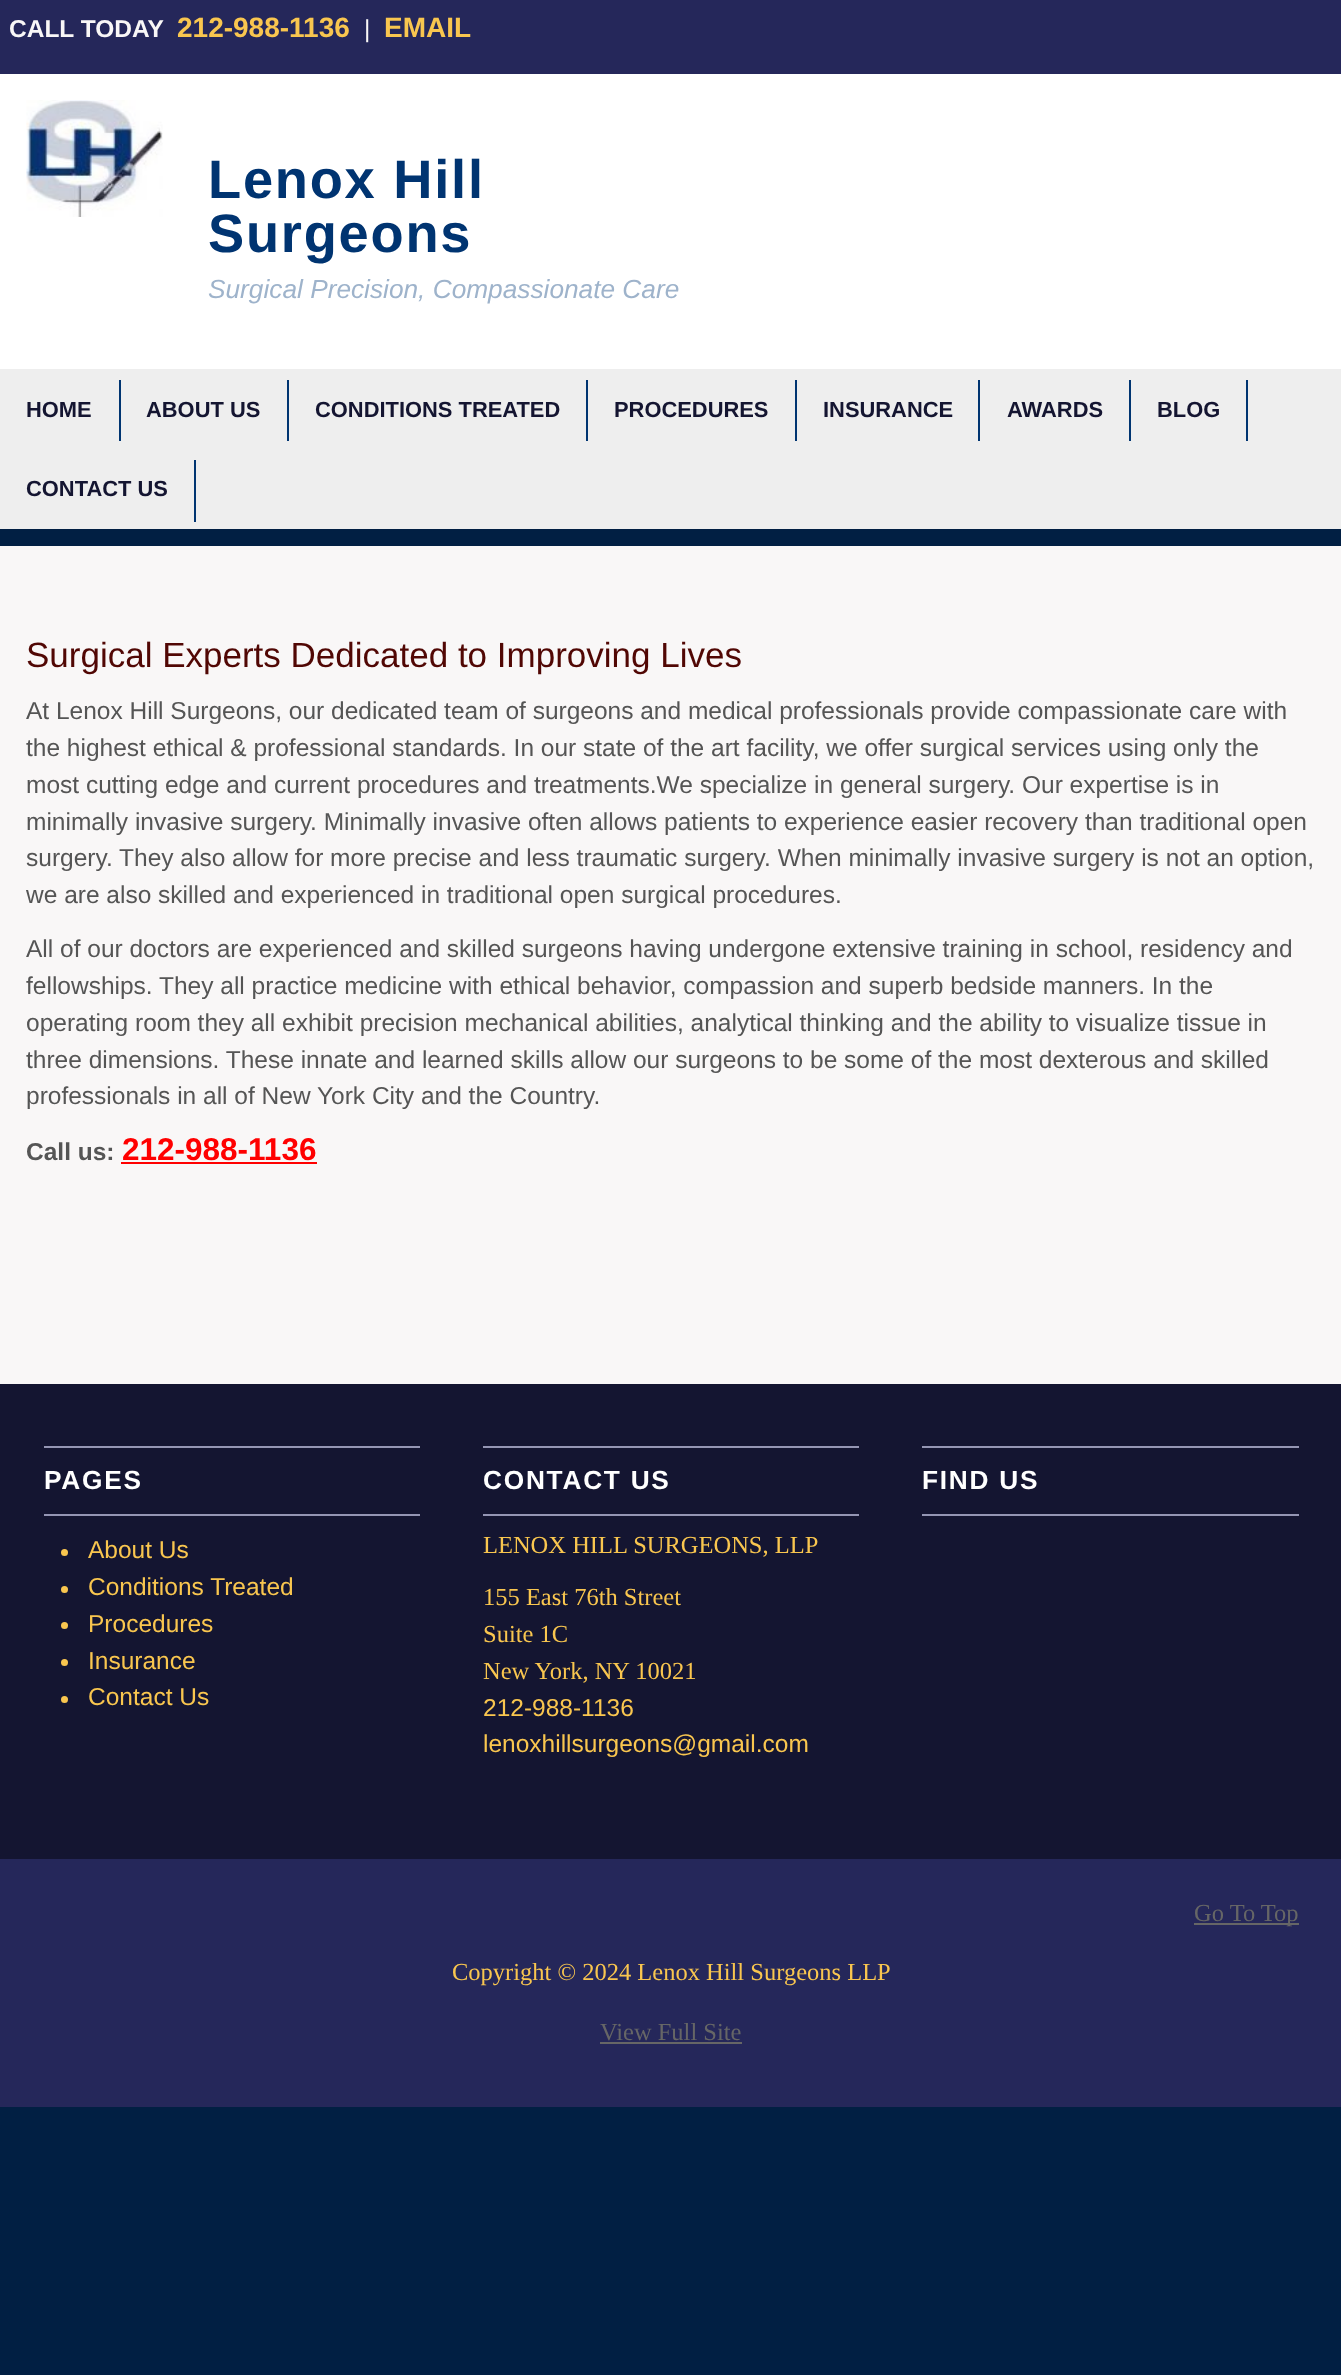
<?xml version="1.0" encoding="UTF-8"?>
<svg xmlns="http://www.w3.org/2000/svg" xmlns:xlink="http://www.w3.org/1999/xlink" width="1341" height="2375">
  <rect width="100%" height="100%" fill="#011f43" />
  <rect width="1341" height="74" fill="#25275a" />
  <rect y="74" width="1341" height="295" fill="#ffffff" />
  <image x="26" y="100" width="137" height="117" xlink:href="image1.png" />
  <rect y="369" width="1341" height="160" fill="#eeeeee" />
  <rect x="119" y="380" width="2" height="61" fill="#003471" />
  <rect x="287" y="380" width="2" height="61" fill="#003471" />
  <rect x="586" y="380" width="2" height="61" fill="#003471" />
  <rect x="795" y="380" width="2" height="61" fill="#003471" />
  <rect x="978" y="380" width="2" height="61" fill="#003471" />
  <rect x="1129" y="380" width="2" height="61" fill="#003471" />
  <rect x="1246" y="380" width="2" height="61" fill="#003471" />
  <rect x="194" y="460" width="2" height="62" fill="#003471" />
  <rect y="546" width="1341" height="838" fill="#f9f7f7" />
  <rect x="121" y="1162" width="196" height="2" fill="#ff0000" />
  <rect y="1384" width="1341" height="475" fill="#141531" />
  <rect x="44" y="1446" width="376" height="2" fill="#9495b3" />
  <rect x="44" y="1514" width="376" height="2" fill="#9495b3" />
  <circle cx="64.5" cy="1552.5" r="3.5" fill="#f9c64f" />
  <circle cx="64.5" cy="1589.5" r="3.5" fill="#f9c64f" />
  <circle cx="64.5" cy="1625.5" r="3.5" fill="#f9c64f" />
  <circle cx="64.5" cy="1662.5" r="3.5" fill="#f9c64f" />
  <circle cx="64.5" cy="1699.5" r="3.5" fill="#f9c64f" />
  <rect x="483" y="1446" width="376" height="2" fill="#9495b3" />
  <rect x="483" y="1514" width="376" height="2" fill="#9495b3" />
  <rect x="922" y="1446" width="377" height="2" fill="#9495b3" />
  <rect x="922" y="1514" width="377" height="2" fill="#9495b3" />
  <rect y="1859" width="1341" height="248" fill="#25275a" />
  <rect x="1194" y="1923" width="105" height="2" fill="#666666" />
  <rect x="600" y="2042" width="142" height="2" fill="#666666" />
  <text x="9" y="37" style="font-family: Liberation Sans; font-size: 24.5px; font-weight: bold; fill: #f9f7f7">CALL TODAY</text>
  <text x="177" y="37" style="font-family: Liberation Sans; font-size: 28px; font-weight: bold; fill: #f9c64f">212-988-1136</text>
  <text x="364" y="37" style="font-family: Liberation Sans; font-size: 24.5px; fill: #f9f7f7">|</text>
  <text x="384" y="37" style="font-family: Liberation Sans; font-size: 28px; font-weight: bold; fill: #f9c64f">EMAIL</text>
  <text x="208" y="198" style="font-family: Liberation Sans; font-size: 54.25px; font-weight: bold; letter-spacing: 1.75px; fill: #003471">Lenox Hill</text>
  <text x="208" y="252" style="font-family: Liberation Sans; font-size: 54.25px; font-weight: bold; letter-spacing: 1.75px; fill: #003471">Surgeons</text>
  <text x="208" y="298" style="font-family: Liberation Sans; font-size: 26.25px; font-style: italic; fill: #9eb3cb">Surgical Precision, Compassionate Care</text>
  <text x="26" y="417" style="font-family: Liberation Sans; font-size: 21.9px; font-weight: bold; fill: #141531">HOME</text>
  <text x="146" y="417" style="font-family: Liberation Sans; font-size: 21.9px; font-weight: bold; fill: #141531">ABOUT US</text>
  <text x="315" y="417" style="font-family: Liberation Sans; font-size: 21.9px; font-weight: bold; fill: #141531">CONDITIONS TREATED</text>
  <text x="614" y="417" style="font-family: Liberation Sans; font-size: 21.9px; font-weight: bold; fill: #141531">PROCEDURES</text>
  <text x="823" y="417" style="font-family: Liberation Sans; font-size: 21.9px; font-weight: bold; fill: #141531">INSURANCE</text>
  <text x="1007" y="417" style="font-family: Liberation Sans; font-size: 21.9px; font-weight: bold; fill: #141531">AWARDS</text>
  <text x="1157" y="417" style="font-family: Liberation Sans; font-size: 21.9px; font-weight: bold; fill: #141531">BLOG</text>
  <text x="26" y="496" style="font-family: Liberation Sans; font-size: 21.9px; font-weight: bold; fill: #141531">CONTACT US</text>
  <text x="26" y="667" style="font-family: Liberation Sans; font-size: 35px; fill: #510704">Surgical Experts Dedicated to Improving Lives</text>
  <text x="26" y="719" style="font-family: Liberation Sans; font-size: 24.5px; fill: #555555">At Lenox Hill Surgeons, our dedicated team of surgeons and medical professionals provide compassionate care with</text>
  <text x="26" y="756" style="font-family: Liberation Sans; font-size: 24.5px; fill: #555555">the highest ethical &amp; professional standards. In our state of the art facility, we offer surgical services using only the</text>
  <text x="26" y="793" style="font-family: Liberation Sans; font-size: 24.5px; fill: #555555">most cutting edge and current procedures and treatments.We specialize in general surgery. Our expertise is in</text>
  <text x="26" y="830" style="font-family: Liberation Sans; font-size: 24.5px; fill: #555555">minimally invasive surgery. Minimally invasive often allows patients to experience easier recovery than traditional open</text>
  <text x="26" y="866" style="font-family: Liberation Sans; font-size: 24.5px; fill: #555555">surgery. They also allow for more precise and less traumatic surgery. When minimally invasive surgery is not an option,</text>
  <text x="26" y="903" style="font-family: Liberation Sans; font-size: 24.5px; fill: #555555">we are also skilled and experienced in traditional open surgical procedures.</text>
  <text x="26" y="957" style="font-family: Liberation Sans; font-size: 24.5px; fill: #555555">All of our doctors are experienced and skilled surgeons having undergone extensive training in school, residency and</text>
  <text x="26" y="994" style="font-family: Liberation Sans; font-size: 24.5px; fill: #555555">fellowships. They all practice medicine with ethical behavior, compassion and superb bedside manners. In the</text>
  <text x="26" y="1031" style="font-family: Liberation Sans; font-size: 24.5px; fill: #555555">operating room they all exhibit precision mechanical abilities, analytical thinking and the ability to visualize tissue in</text>
  <text x="26" y="1068" style="font-family: Liberation Sans; font-size: 24.5px; fill: #555555">three dimensions. These innate and learned skills allow our surgeons to be some of the most dexterous and skilled</text>
  <text x="26" y="1104" style="font-family: Liberation Sans; font-size: 24.5px; fill: #555555">professionals in all of New York City and the Country.</text>
  <text x="26" y="1160" style="font-family: Liberation Sans; font-size: 24.5px; font-weight: bold; fill: #555555">Call us:</text>
  <text x="122" y="1160" style="font-family: Liberation Sans; font-size: 31.5px; font-weight: bold; fill: #ff0000">212-988-1136</text>
  <text x="44" y="1489" style="font-family: Liberation Sans; font-size: 26.25px; font-weight: bold; letter-spacing: 1.75px; fill: #ffffff">PAGES</text>
  <text x="88" y="1558" style="font-family: Liberation Sans; font-size: 24.5px; fill: #f9c64f">About Us</text>
  <text x="88" y="1595" style="font-family: Liberation Sans; font-size: 24.5px; fill: #f9c64f">Conditions Treated</text>
  <text x="88" y="1632" style="font-family: Liberation Sans; font-size: 24.5px; fill: #f9c64f">Procedures</text>
  <text x="88" y="1669" style="font-family: Liberation Sans; font-size: 24.5px; fill: #f9c64f">Insurance</text>
  <text x="88" y="1705" style="font-family: Liberation Sans; font-size: 24.5px; fill: #f9c64f">Contact Us</text>
  <text x="483" y="1489" style="font-family: Liberation Sans; font-size: 26.25px; font-weight: bold; letter-spacing: 1.75px; fill: #ffffff">CONTACT US</text>
  <text x="483" y="1553" style="font-family: Liberation Serif; font-size: 24.5px; fill: #f9c64f">LENOX HILL SURGEONS, LLP</text>
  <text x="483" y="1605" style="font-family: Liberation Serif; font-size: 24.5px; fill: #f9c64f">155 East 76th Street</text>
  <text x="483" y="1642" style="font-family: Liberation Serif; font-size: 24.5px; fill: #f9c64f">Suite 1C</text>
  <text x="483" y="1679" style="font-family: Liberation Serif; font-size: 24.5px; fill: #f9c64f">New York, NY 10021</text>
  <text x="483" y="1716" style="font-family: Liberation Sans; font-size: 24.5px; fill: #f9c64f">212-988-1136</text>
  <text x="483" y="1752" style="font-family: Liberation Sans; font-size: 24.5px; fill: #f9c64f">lenoxhillsurgeons@gmail.com</text>
  <text x="922" y="1489" style="font-family: Liberation Sans; font-size: 26.25px; font-weight: bold; letter-spacing: 1.75px; fill: #ffffff">FIND US</text>
  <text x="1194" y="1921" style="font-family: Liberation Serif; font-size: 24.5px; fill: #666666">Go To Top</text>
  <text x="452" y="1980" style="font-family: Liberation Serif; font-size: 24.5px; fill: #f9c64f">Copyright © 2024 Lenox Hill Surgeons LLP</text>
  <text x="600" y="2040" style="font-family: Liberation Serif; font-size: 24.5px; fill: #666666">View Full Site</text>
</svg>
